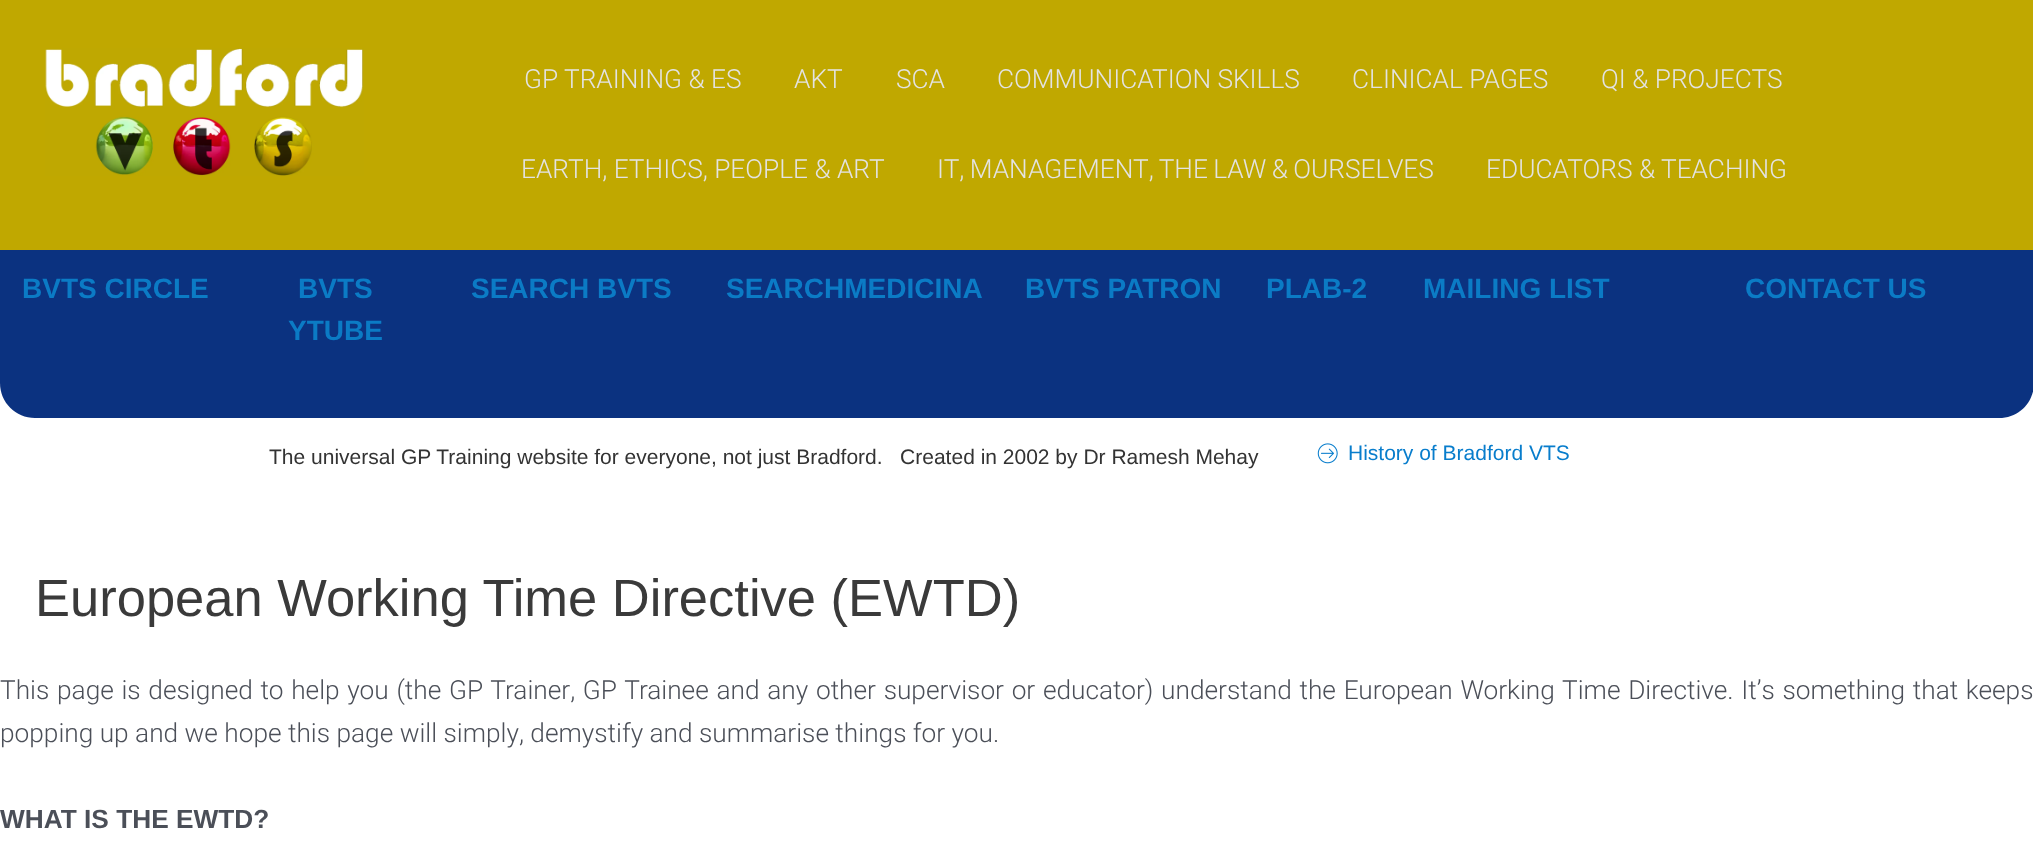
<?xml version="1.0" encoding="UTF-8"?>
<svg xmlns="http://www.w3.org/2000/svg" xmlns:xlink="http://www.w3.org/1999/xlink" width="2033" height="847">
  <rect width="100%" height="100%" fill="#ffffff" />
  <rect width="2033" height="250" fill="#c0a800" />
  <image x="45" y="48" width="319" height="128" xlink:href="image1.png" />
  <path d="M 0 250 h 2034 v 133 c 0 19.5 -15.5 35 -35 35 h -1964 c -19.5 0 -35 -15.5 -35 -35 z" fill="#0b3280" />
  <image x="1317" y="443" width="21" height="21" xlink:href="image2.png" />
  <text x="524" y="88" style="font-family: Roboto; font-size: 26.25px; font-weight: 300; fill: #e3e3e3">GP TRAINING &amp; ES</text>
  <text x="794" y="88" style="font-family: Roboto; font-size: 26.25px; font-weight: 300; fill: #e3e3e3">AKT</text>
  <text x="896" y="88" style="font-family: Roboto; font-size: 26.25px; font-weight: 300; fill: #e3e3e3">SCA</text>
  <text x="997" y="88" style="font-family: Roboto; font-size: 26.25px; font-weight: 300; fill: #e3e3e3">COMMUNICATION SKILLS</text>
  <text x="1352" y="88" style="font-family: Roboto; font-size: 26.25px; font-weight: 300; fill: #e3e3e3">CLINICAL PAGES</text>
  <text x="1601" y="88" style="font-family: Roboto; font-size: 26.25px; font-weight: 300; fill: #e3e3e3">QI &amp; PROJECTS</text>
  <text x="521" y="178" style="font-family: Roboto; font-size: 26.25px; font-weight: 300; fill: #e3e3e3">EARTH, ETHICS, PEOPLE &amp; ART</text>
  <text x="937" y="178" word-spacing="-1" style="font-family: Roboto; font-size: 26.25px; font-weight: 300; fill: #e3e3e3">IT, MANAGEMENT, THE LAW &amp; OURSELVES</text>
  <text x="1486" y="178" style="font-family: Roboto; font-size: 26.25px; font-weight: 300; fill: #e3e3e3">EDUCATORS &amp; TEACHING</text>
  <text x="22" y="298" style="font-family: Liberation Sans; font-size: 28px; font-weight: bold; fill: #0b7bc5">BVTS CIRCLE</text>
  <text x="298" y="298" style="font-family: Liberation Sans; font-size: 28px; font-weight: bold; fill: #0b7bc5">BVTS</text>
  <text x="288" y="340" style="font-family: Liberation Sans; font-size: 28px; font-weight: bold; fill: #0b7bc5">YTUBE</text>
  <text x="471" y="298" style="font-family: Liberation Sans; font-size: 28px; font-weight: bold; fill: #0b7bc5">SEARCH BVTS</text>
  <text x="726" y="298" style="font-family: Liberation Sans; font-size: 28px; font-weight: bold; fill: #0b7bc5">SEARCHMEDICINA</text>
  <text x="1025" y="298" style="font-family: Liberation Sans; font-size: 28px; font-weight: bold; fill: #0b7bc5">BVTS PATRON</text>
  <text x="1266" y="298" style="font-family: Liberation Sans; font-size: 28px; font-weight: bold; fill: #0b7bc5">PLAB-2</text>
  <text x="1423" y="298" style="font-family: Liberation Sans; font-size: 28px; font-weight: bold; fill: #0b7bc5">MAILING LIST</text>
  <text x="1745" y="298" style="font-family: Liberation Sans; font-size: 28px; font-weight: bold; fill: #0b7bc5">CONTACT US</text>
  <text x="269" y="464" style="font-family: Liberation Sans; font-size: 21px; fill: #333333" xml:space="preserve">The universal GP Training website for everyone, not just Bradford.   Created in 2002 by Dr Ramesh Mehay</text>
  <text x="1348" y="460" style="font-family: Liberation Sans; font-size: 21px; fill: #087dcc">History of Bradford VTS</text>
  <text x="35" y="616" style="font-family: Liberation Sans; font-size: 52.5px; fill: #3a3a3a">European Working Time Directive (EWTD)</text>
  <text x="0" y="699" word-spacing="1.3" style="font-family: Roboto; font-size: 26.25px; font-weight: 300; fill: #4b4f58">This page is designed to help you (the GP Trainer, GP Trainee and any other supervisor or educator) understand the European Working Time Directive. It’s something that keeps</text>
  <text x="0" y="742" style="font-family: Roboto; font-size: 26.25px; font-weight: 300; fill: #4b4f58">popping up and we hope this page will simply, demystify and summarise things for you.</text>
  <text x="0" y="828" style="font-family: Liberation Sans; font-size: 26.25px; font-weight: bold; fill: #4b4f58">WHAT IS THE EWTD?</text>
</svg>
